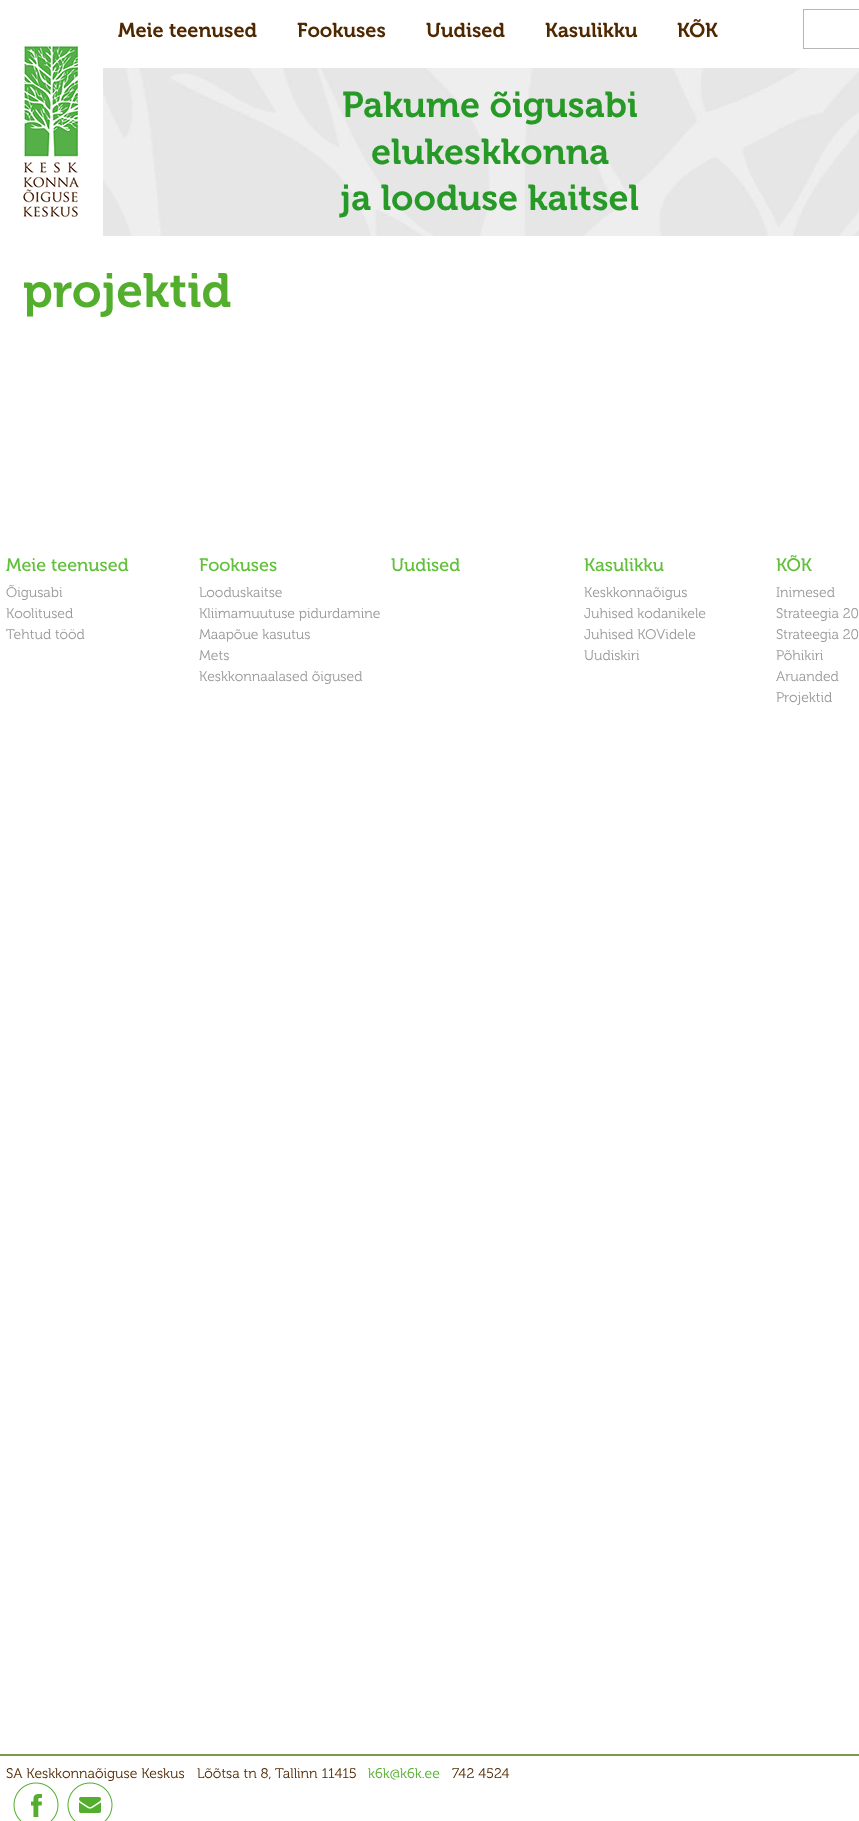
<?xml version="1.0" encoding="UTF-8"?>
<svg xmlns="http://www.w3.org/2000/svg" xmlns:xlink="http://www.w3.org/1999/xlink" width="859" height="1821">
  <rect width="100%" height="100%" fill="#ffffff" />
  <rect x="803.5" y="9.5" width="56" height="39" fill="none" stroke="#b6b6b6" />
  <image x="103" y="68" width="756" height="168" xlink:href="image1.png" />
  <image x="0" y="46" width="103" height="190" xlink:href="image2.png" />
  <rect y="1754" width="859" height="2" fill="#7d9a46" />
  <image x="13" y="1782" width="46" height="39" xlink:href="image3.png" />
  <image x="67" y="1782" width="46" height="39" xlink:href="image4.png" />
  <text x="118" y="37" style="font-family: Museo; font-size: 20px; font-weight: 600; fill: #502800">Meie teenused</text>
  <text x="297" y="37" style="font-family: Museo; font-size: 20px; font-weight: 600; fill: #502800">Fookuses</text>
  <text x="426" y="37" style="font-family: Museo; font-size: 20px; font-weight: 600; fill: #502800">Uudised</text>
  <text x="545" y="37" style="font-family: Museo; font-size: 20px; font-weight: 600; fill: #502800">Kasulikku</text>
  <text x="677" y="37" style="font-family: Museo; font-size: 20px; font-weight: 600; fill: #502800">KÕK</text>
  <text x="342" y="117" style="font-family: Museo; font-size: 36px; font-weight: 600; fill: #269926">Pakume õigusabi</text>
  <text x="371" y="164" style="font-family: Museo; font-size: 36px; font-weight: 600; fill: #269926">elukeskkonna</text>
  <text x="340" y="210" style="font-family: Museo; font-size: 36px; font-weight: 600; fill: #269926">ja looduse kaitsel</text>
  <text x="23" y="307" style="font-family: Museo; font-size: 48px; font-weight: 600; fill: #53ae2d">projektid</text>
  <text x="6" y="571" style="font-family: Museo; font-size: 18px; fill: #61c039">Meie teenused</text>
  <text x="6" y="597" style="font-family: Museo; font-size: 14px; font-weight: 300; fill: #999999">Õigusabi</text>
  <text x="6" y="618" style="font-family: Museo; font-size: 14px; font-weight: 300; fill: #999999">Koolitused</text>
  <text x="6" y="639" style="font-family: Museo; font-size: 14px; font-weight: 300; fill: #999999">Tehtud tööd</text>
  <text x="199" y="571" style="font-family: Museo; font-size: 18px; fill: #61c039">Fookuses</text>
  <text x="199" y="597" style="font-family: Museo; font-size: 14px; font-weight: 300; fill: #999999">Looduskaitse</text>
  <text x="199" y="618" style="font-family: Museo; font-size: 14px; font-weight: 300; fill: #999999">Kliimamuutuse pidurdamine</text>
  <text x="199" y="639" style="font-family: Museo; font-size: 14px; font-weight: 300; fill: #999999">Maapõue kasutus</text>
  <text x="199" y="660" style="font-family: Museo; font-size: 14px; font-weight: 300; fill: #999999">Mets</text>
  <text x="199" y="681" style="font-family: Museo; font-size: 14px; font-weight: 300; fill: #999999">Keskkonnaalased õigused</text>
  <text x="391" y="571" style="font-family: Museo; font-size: 18px; fill: #61c039">Uudised</text>
  <text x="584" y="571" style="font-family: Museo; font-size: 18px; fill: #61c039">Kasulikku</text>
  <text x="584" y="597" style="font-family: Museo; font-size: 14px; font-weight: 300; fill: #999999">Keskkonnaõigus</text>
  <text x="584" y="618" style="font-family: Museo; font-size: 14px; font-weight: 300; fill: #999999">Juhised kodanikele</text>
  <text x="584" y="639" style="font-family: Museo; font-size: 14px; font-weight: 300; fill: #999999">Juhised KOVidele</text>
  <text x="584" y="660" style="font-family: Museo; font-size: 14px; font-weight: 300; fill: #999999">Uudiskiri</text>
  <text x="776" y="571" style="font-family: Museo; font-size: 18px; fill: #61c039">KÕK</text>
  <text x="776" y="597" style="font-family: Museo; font-size: 14px; font-weight: 300; fill: #999999">Inimesed</text>
  <text x="776" y="618" style="font-family: Museo; font-size: 14px; font-weight: 300; fill: #999999">Strateegia 20</text>
  <text x="776" y="639" style="font-family: Museo; font-size: 14px; font-weight: 300; fill: #999999">Strateegia 20</text>
  <text x="776" y="660" style="font-family: Museo; font-size: 14px; font-weight: 300; fill: #999999">Põhikiri</text>
  <text x="776" y="681" style="font-family: Museo; font-size: 14px; font-weight: 300; fill: #999999">Aruanded</text>
  <text x="776" y="702" style="font-family: Museo; font-size: 14px; font-weight: 300; fill: #999999">Projektid</text>
  <text x="6" y="1778" style="font-family: Museo; font-size: 14px; font-weight: 300; fill: #502800">SA Keskkonnaõiguse Keskus</text>
  <text x="197" y="1778" style="font-family: Museo; font-size: 14px; font-weight: 300; fill: #502800">Lõõtsa tn 8, Tallinn 11415</text>
  <text x="368" y="1778" style="font-family: Museo; font-size: 14px; font-weight: 300; fill: #53ae2d">k6k@k6k.ee</text>
  <text x="452" y="1778" style="font-family: Museo; font-size: 14px; font-weight: 300; fill: #502800">742 4524</text>
</svg>
